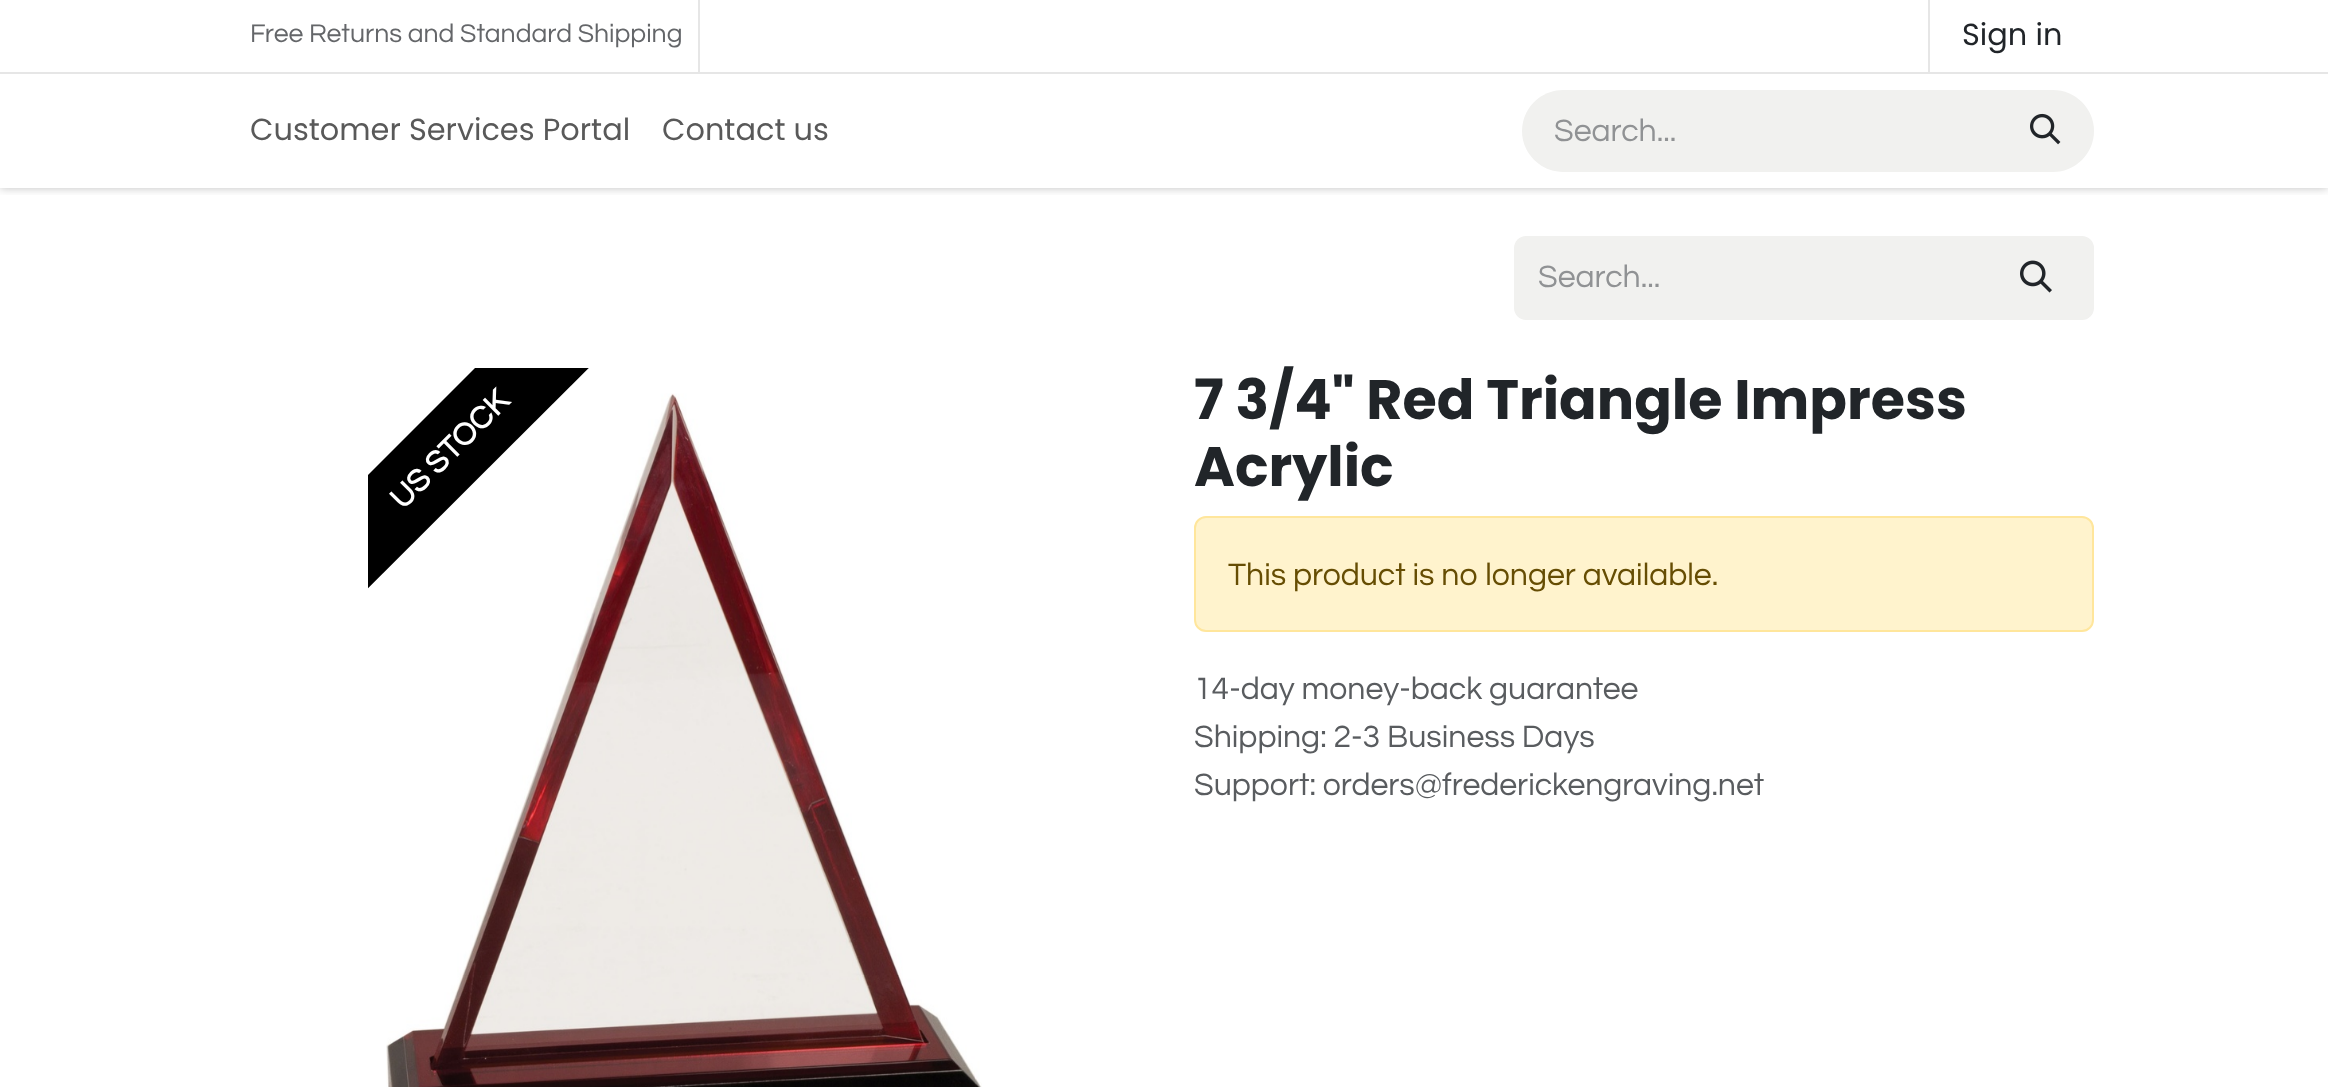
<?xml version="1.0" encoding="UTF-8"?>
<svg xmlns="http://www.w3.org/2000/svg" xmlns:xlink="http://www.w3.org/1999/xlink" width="2328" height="1087">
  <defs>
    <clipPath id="clip1"><rect x="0" y="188" width="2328" height="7" /></clipPath>
    <clipPath id="clip2"><rect x="368" y="368" width="632" height="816" /></clipPath>
  </defs>
  <rect width="100%" height="100%" fill="#ffffff" />
  <g clip-path="url(#clip1)">
    <rect width="2328" height="188" fill="#000000" fill-opacity="0.25" filter="blur(5px)" />
  </g>
  <rect y="72" width="2328" height="2" fill="#e6e6e6" />
  <rect x="698" width="2" height="72" fill="#e6e6e6" />
  <rect x="1928" width="2" height="72" fill="#e6e6e6" />
  <path d="M 1563 90 h 427 v 82 h -427 c -22.5 0 -41 -18.5 -41 -41 c 0 -22.5 18.5 -41 41 -41 z" fill="#f1f1ef" />
  <path d="M 1988 90 h 65 c 22.5 0 41 18.5 41 41 c 0 22.5 -18.5 41 -41 41 h -65 z" fill="#f1f1ef" />
  <image x="2030" y="113" width="31" height="32" xlink:href="image1.png" />
  <path d="M 1526 236 h 454 v 84 h -454 c -6.5 0 -12 -5.5 -12 -12 v -60 c 0 -6.5 5.5 -12 12 -12 z" fill="#f1f1ef" />
  <path d="M 1979 237 h 103 c 6 0 11 5 11 11 v 60 c 0 6 -5 11 -11 11 h -103 z" fill="#f1f1ef" stroke="#f1f1ef" stroke-width="2" />
  <image x="2020" y="260" width="32" height="33" xlink:href="image2.png" />
  <image x="386" y="393" width="596" height="694" xlink:href="image3.png" />
  <g clip-path="url(#clip2)">
    <path d="M 226 617 l 391 -391 l 57 57 l -391 390 z" fill="#000000" />
  </g>
  <rect x="1195" y="517" width="898" height="114" rx="11" fill="#fff3cd" stroke="#ffe69c" stroke-width="2" />
  <text x="250" y="42" style="font-family: Questrial; font-size: 26.6px; fill: #646669">Free Returns and Standard Shipping</text>
  <text x="1962" y="45" style="font-family: Poppins; font-size: 30.4px; fill: #212529">Sign in</text>
  <text x="250" y="140" style="font-family: Poppins; font-size: 30.4px; fill: #595959">Customer Services Portal</text>
  <text x="662" y="140" style="font-family: Poppins; font-size: 30.4px; fill: #595959">Contact us</text>
  <text x="1554" y="141" style="font-family: Questrial; font-size: 32px; fill: #909294">Search...</text>
  <text x="1538" y="287" style="font-family: Questrial; font-size: 32px; fill: #909294">Search...</text>
  <text x="403" y="511" transform="rotate(-45 403 511)" style="font-family: Questrial; font-size: 32px; font-weight: bold; fill: #ffffff">US STOCK</text>
  <text x="1194" y="419" style="font-family: Poppins; font-size: 55.5px; font-weight: bold; fill: #212529">7 3/4" Red Triangle Impress</text>
  <text x="1194" y="486" style="font-family: Poppins; font-size: 55.5px; font-weight: bold; fill: #212529">Acrylic</text>
  <text x="1228" y="585" style="font-family: Questrial; font-size: 32px; fill: #664d03">This product is no longer available.</text>
  <text x="1194" y="699" style="font-family: Questrial; font-size: 32px; fill: #595c5f">14-day money-back guarantee</text>
  <text x="1194" y="747" style="font-family: Questrial; font-size: 32px; fill: #595c5f">Shipping: 2-3 Business Days</text>
  <text x="1194" y="795" style="font-family: Questrial; font-size: 32px; fill: #595c5f">Support: orders@frederickengraving.net</text>
</svg>
